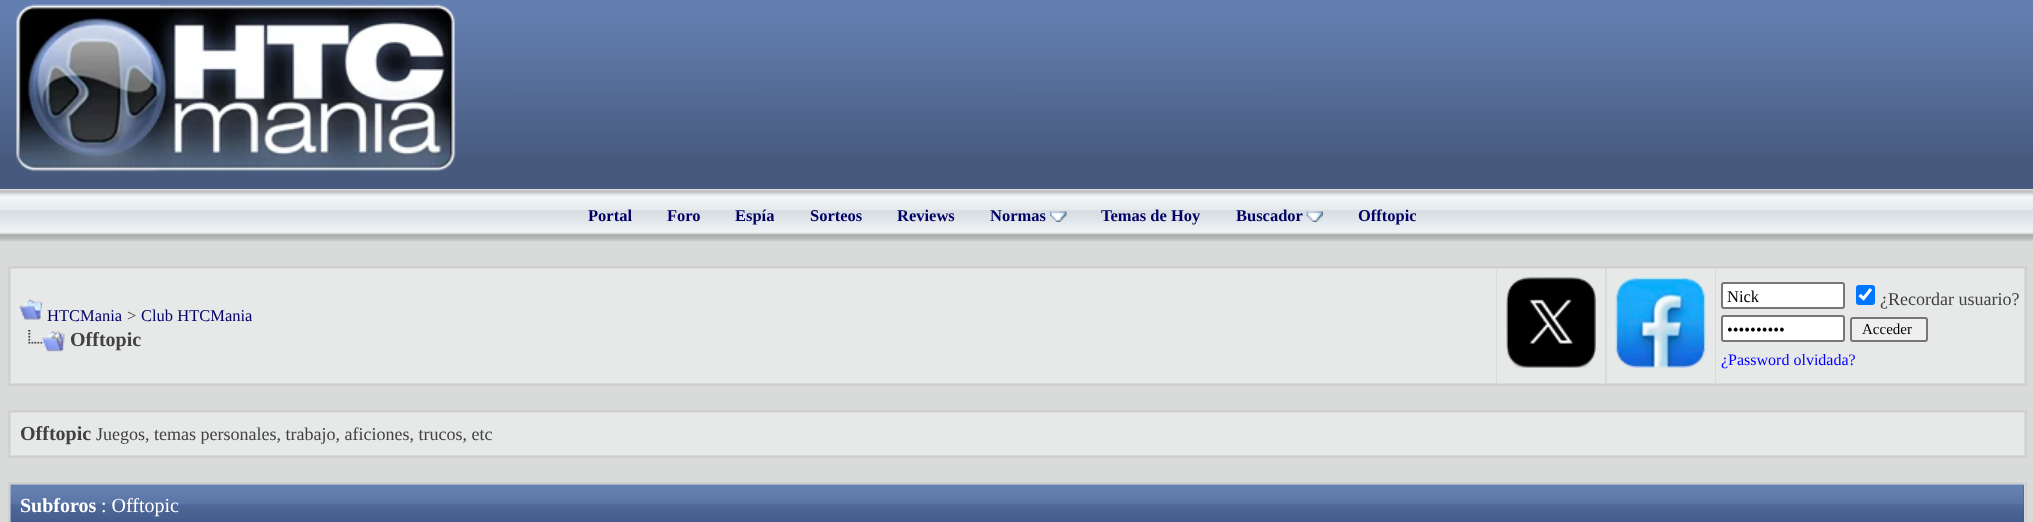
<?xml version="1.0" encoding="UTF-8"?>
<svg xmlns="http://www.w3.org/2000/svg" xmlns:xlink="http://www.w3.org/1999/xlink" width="2033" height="522">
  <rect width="100%" height="100%" fill="#475a7d" />
  <image x="0" y="0" width="2033" height="156" xlink:href="image1.png" />
  <image x="16" y="4" width="440" height="168" xlink:href="image2.png" />
  <rect y="241" width="2033" height="1" fill="#dce2e7" />
  <image x="0" y="189" width="2033" height="53" xlink:href="image3.png" />
  <image x="1050" y="211" width="17" height="11" xlink:href="image4.png" />
  <image x="1306" y="211" width="17" height="11" xlink:href="image5.png" />
  <rect y="242" width="2033" height="280" fill="#d9dada" />
  <rect x="9" y="267" width="2017" height="118" fill="none" stroke="#d0d0d0" stroke-width="2" />
  <rect x="11" y="269" width="1485" height="114" fill="#e7e9e9" />
  <image x="19" y="299" width="23" height="21" xlink:href="image6.png" />
  <image x="28" y="330" width="37" height="22" xlink:href="image7.png" />
  <rect x="1497" y="269" width="108" height="114" fill="#e7e9e9" />
  <image x="1506" y="277" width="90" height="91" xlink:href="image8.png" />
  <rect x="1607" y="269" width="108" height="114" fill="#e7e9e9" />
  <image x="1615" y="277" width="91" height="91" xlink:href="image9.png" />
  <rect x="1716" y="269" width="308" height="114" fill="#e7e9e9" />
  <rect x="1722" y="283" width="122" height="25" rx="2" fill="#ffffff" stroke="#767676" stroke-width="2" />
  <rect x="1856" y="285" width="19" height="20" rx="3" fill="#0075ff" />
  <path d="M 1859.5 295 l 4 3.5 l 7.5 -9.5" fill="none" stroke="#ffffff" stroke-width="3.1" />
  <rect x="1722" y="316" width="122" height="25" rx="2" fill="#ffffff" stroke="#767676" stroke-width="2" />
  <rect x="1851" y="318" width="76" height="23" rx="2" fill="#efefef" stroke="#767676" stroke-width="2" />
  <rect x="9" y="411" width="2017" height="46" fill="none" stroke="#d0d0d0" stroke-width="2" />
  <rect x="11" y="413" width="2013" height="42" fill="#e7e9e9" />
  <rect x="8" y="482" width="2019" height="2" fill="#d0d0d0" />
  <rect x="2025" y="482" width="2" height="40" fill="#d0d0d0" />
  <rect x="8" y="482" width="2" height="40" fill="#d0d0d0" />
  <rect x="2023" y="485" width="1" height="37" fill="#415989" />
  <image x="10" y="484" width="2014" height="38" xlink:href="image10.png" />
  <text x="588" y="221" style="font-family: Liberation Serif; font-size: 16.5px; font-weight: bold; fill: #000066">Portal</text>
  <text x="667" y="221" style="font-family: Liberation Serif; font-size: 16.5px; font-weight: bold; fill: #000066">Foro</text>
  <text x="735" y="221" style="font-family: Liberation Serif; font-size: 16.5px; font-weight: bold; fill: #000066">Espía</text>
  <text x="810" y="221" style="font-family: Liberation Serif; font-size: 16.5px; font-weight: bold; fill: #000066">Sorteos</text>
  <text x="897" y="221" style="font-family: Liberation Serif; font-size: 16.5px; font-weight: bold; fill: #000066">Reviews</text>
  <text x="990" y="221" style="font-family: Liberation Serif; font-size: 16.5px; font-weight: bold; fill: #000066">Normas</text>
  <text x="1101" y="221" style="font-family: Liberation Serif; font-size: 16.5px; font-weight: bold; fill: #000066">Temas de Hoy</text>
  <text x="1236" y="221" style="font-family: Liberation Serif; font-size: 16.5px; font-weight: bold; fill: #000066">Buscador</text>
  <text x="1358" y="221" style="font-family: Liberation Serif; font-size: 16.5px; font-weight: bold; fill: #000066">Offtopic</text>
  <text x="47" y="321" style="font-family: Liberation Serif; font-size: 16.5px; fill: #000066">HTCMania</text>
  <text x="127" y="321" style="font-family: Liberation Serif; font-size: 16.5px; fill: #414141">&gt;</text>
  <text x="141" y="321" style="font-family: Liberation Serif; font-size: 16.5px; fill: #000066">Club HTCMania</text>
  <text x="70" y="346" style="font-family: Liberation Serif; font-size: 20px; font-weight: bold; fill: #414141">Offtopic</text>
  <text x="1727" y="302" style="font-family: Liberation Serif; font-size: 16.5px; fill: #000000">Nick</text>
  <text x="1880" y="305" style="font-family: Liberation Serif; font-size: 18px; fill: #414141">¿Recordar usuario?</text>
  <text x="1727" y="335" style="font-family: Liberation Serif; font-size: 16.5px; fill: #000000">••••••••••</text>
  <text x="1862" y="334" style="font-family: Liberation Serif; font-size: 15px; fill: #000000">Acceder</text>
  <text x="1721" y="365" style="font-family: Liberation Serif; font-size: 16px; fill: #0000ff">¿Password olvidada?</text>
  <text x="20" y="440" style="font-family: Liberation Serif; font-size: 20px; font-weight: bold; fill: #414141">Offtopic</text>
  <text x="96" y="440" style="font-family: Liberation Serif; font-size: 18px; fill: #414141">Juegos, temas personales, trabajo, aficiones, trucos, etc</text>
  <text x="20" y="512" style="font-family: Liberation Serif; font-size: 20px; font-weight: bold; fill: #ffffff">Subforos</text>
  <text x="101" y="512" style="font-family: Liberation Serif; font-size: 20px; fill: #ffffff">: Offtopic</text>
</svg>
